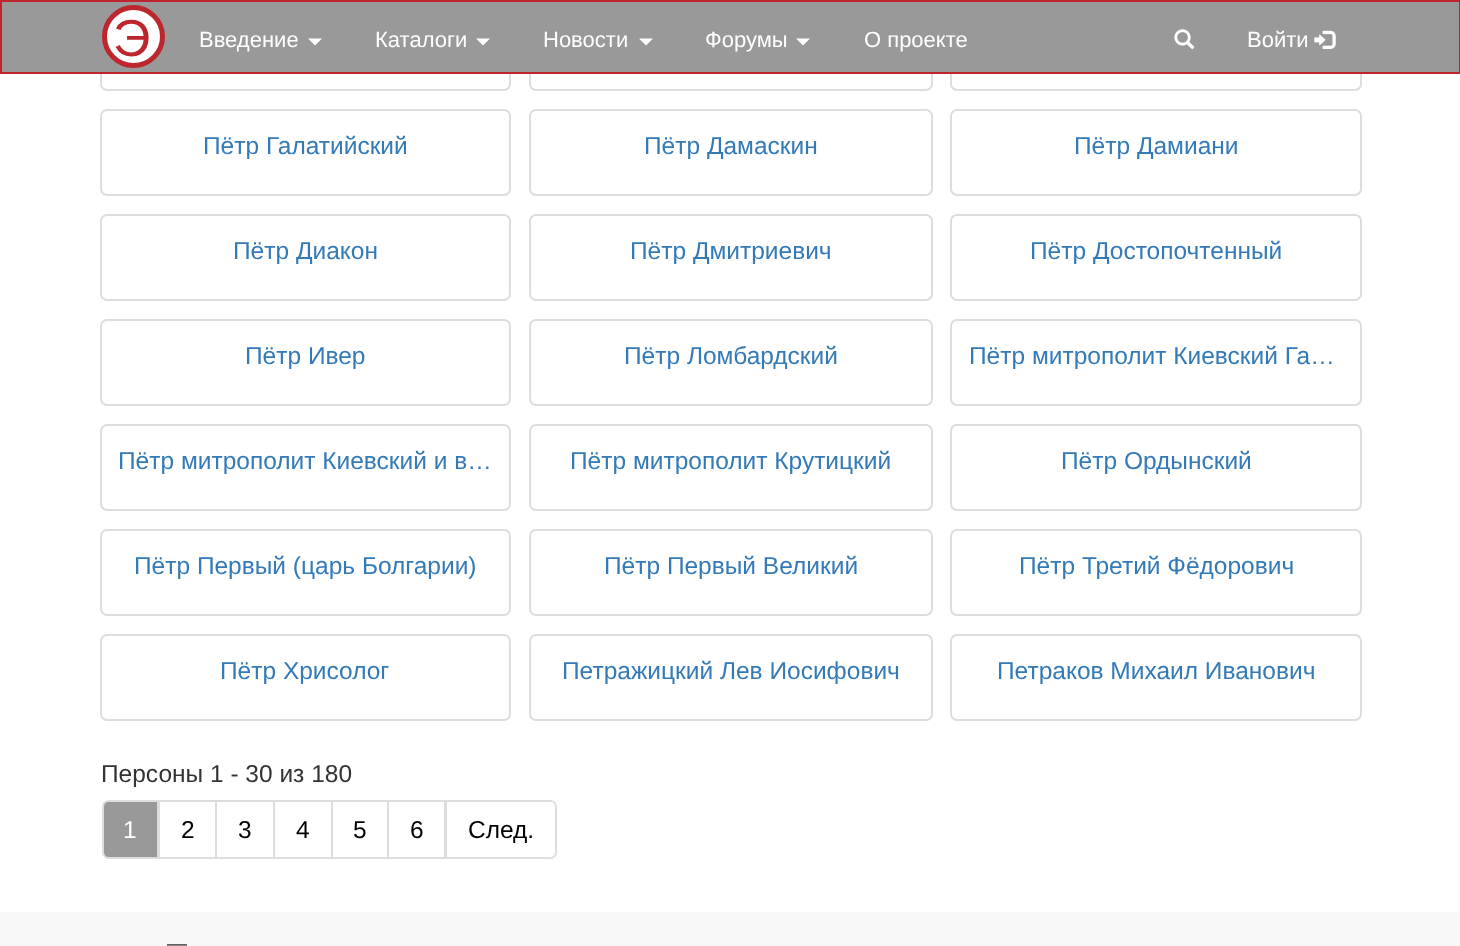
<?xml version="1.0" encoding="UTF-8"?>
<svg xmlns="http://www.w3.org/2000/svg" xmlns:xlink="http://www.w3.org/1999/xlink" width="1460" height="946">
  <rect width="100%" height="100%" fill="#ffffff" />
  <rect x="101" y="5" width="409" height="85" rx="6" fill="none" stroke="#dddddd" stroke-width="2" />
  <rect x="530" y="5" width="402" height="85" rx="6" fill="none" stroke="#dddddd" stroke-width="2" />
  <rect x="951" y="5" width="410" height="85" rx="6" fill="none" stroke="#dddddd" stroke-width="2" />
  <rect x="1" y="1" width="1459" height="72" fill="#999999" stroke="#bc262c" stroke-width="2" />
  <circle cx="133.5" cy="36.5" r="29" fill="#ffffff" stroke="#bc262c" stroke-width="5" />
  <path d="M 308 38.5 h 14 l -7 7 z" fill="#ffffff" />
  <path d="M 476 38.5 h 14 l -7 7 z" fill="#ffffff" />
  <path d="M 639 38.5 h 14 l -7 7 z" fill="#ffffff" />
  <path d="M 796 38.5 h 14 l -7 7 z" fill="#ffffff" />
  <image x="1174" y="29" width="21" height="20" xlink:href="image1.png" />
  <image x="1314" y="30" width="22" height="19" xlink:href="image2.png" />
  <rect x="101" y="110" width="409" height="85" rx="6" fill="none" stroke="#dddddd" stroke-width="2" />
  <rect x="530" y="110" width="402" height="85" rx="6" fill="none" stroke="#dddddd" stroke-width="2" />
  <rect x="951" y="110" width="410" height="85" rx="6" fill="none" stroke="#dddddd" stroke-width="2" />
  <rect x="101" y="215" width="409" height="85" rx="6" fill="none" stroke="#dddddd" stroke-width="2" />
  <rect x="530" y="215" width="402" height="85" rx="6" fill="none" stroke="#dddddd" stroke-width="2" />
  <rect x="951" y="215" width="410" height="85" rx="6" fill="none" stroke="#dddddd" stroke-width="2" />
  <rect x="101" y="320" width="409" height="85" rx="6" fill="none" stroke="#dddddd" stroke-width="2" />
  <rect x="530" y="320" width="402" height="85" rx="6" fill="none" stroke="#dddddd" stroke-width="2" />
  <rect x="951" y="320" width="410" height="85" rx="6" fill="none" stroke="#dddddd" stroke-width="2" />
  <rect x="101" y="425" width="409" height="85" rx="6" fill="none" stroke="#dddddd" stroke-width="2" />
  <rect x="530" y="425" width="402" height="85" rx="6" fill="none" stroke="#dddddd" stroke-width="2" />
  <rect x="951" y="425" width="410" height="85" rx="6" fill="none" stroke="#dddddd" stroke-width="2" />
  <rect x="101" y="530" width="409" height="85" rx="6" fill="none" stroke="#dddddd" stroke-width="2" />
  <rect x="530" y="530" width="402" height="85" rx="6" fill="none" stroke="#dddddd" stroke-width="2" />
  <rect x="951" y="530" width="410" height="85" rx="6" fill="none" stroke="#dddddd" stroke-width="2" />
  <rect x="101" y="635" width="409" height="85" rx="6" fill="none" stroke="#dddddd" stroke-width="2" />
  <rect x="530" y="635" width="402" height="85" rx="6" fill="none" stroke="#dddddd" stroke-width="2" />
  <rect x="951" y="635" width="410" height="85" rx="6" fill="none" stroke="#dddddd" stroke-width="2" />
  <rect x="159" y="801" width="57" height="57" fill="none" stroke="#dddddd" stroke-width="2" />
  <path d="M 109 801 h 49 v 57 h -49 c -3.5 0 -6 -2.5 -6 -6 v -45 c 0 -3.5 2.5 -6 6 -6 z" fill="#999999" stroke="#dddddd" stroke-width="2" />
  <rect x="216" y="801" width="58" height="57" fill="none" stroke="#dddddd" stroke-width="2" />
  <rect x="274" y="801" width="58" height="57" fill="none" stroke="#dddddd" stroke-width="2" />
  <rect x="332" y="801" width="56" height="57" fill="none" stroke="#dddddd" stroke-width="2" />
  <rect x="388" y="801" width="57" height="57" fill="none" stroke="#dddddd" stroke-width="2" />
  <path d="M 446 801 h 104 c 3.5 0 6 2.5 6 6 v 45 c 0 3.5 -2.5 6 -6 6 h -104 z" fill="#ffffff" stroke="#dddddd" stroke-width="2" />
  <rect y="912" width="1460" height="34" fill="#f8f8f8" />
  <text x="113" y="56" style="font-family: Liberation Sans; font-size: 52px; fill: #bc262c">Э</text>
  <text x="199" y="47" style="font-family: Liberation Sans; font-size: 22px; fill: #ffffff">Введение</text>
  <text x="375" y="47" style="font-family: Liberation Sans; font-size: 22px; fill: #ffffff">Каталоги</text>
  <text x="543" y="47" style="font-family: Liberation Sans; font-size: 22px; fill: #ffffff">Новости</text>
  <text x="705" y="47" style="font-family: Liberation Sans; font-size: 22px; fill: #ffffff">Форумы</text>
  <text x="864" y="47" style="font-family: Liberation Sans; font-size: 22px; fill: #ffffff">О проекте</text>
  <text x="1247" y="47" style="font-family: Liberation Sans; font-size: 22px; fill: #ffffff">Войти</text>
  <text x="203" y="154" style="font-family: Liberation Sans; font-size: 24.5px; fill: #337ab7">Пётр Галатийский</text>
  <text x="644" y="154" style="font-family: Liberation Sans; font-size: 24.5px; fill: #337ab7">Пётр Дамаскин</text>
  <text x="1074" y="154" style="font-family: Liberation Sans; font-size: 24.5px; fill: #337ab7">Пётр Дамиани</text>
  <text x="233" y="259" style="font-family: Liberation Sans; font-size: 24.5px; fill: #337ab7">Пётр Диакон</text>
  <text x="630" y="259" style="font-family: Liberation Sans; font-size: 24.5px; fill: #337ab7">Пётр Дмитриевич</text>
  <text x="1030" y="259" style="font-family: Liberation Sans; font-size: 24.5px; fill: #337ab7">Пётр Достопочтенный</text>
  <text x="245" y="364" style="font-family: Liberation Sans; font-size: 24.5px; fill: #337ab7">Пётр Ивер</text>
  <text x="624" y="364" style="font-family: Liberation Sans; font-size: 24.5px; fill: #337ab7">Пётр Ломбардский</text>
  <text x="969" y="364" style="font-family: Liberation Sans; font-size: 24.5px; fill: #337ab7">Пётр митрополит Киевский Га…</text>
  <text x="118" y="469" style="font-family: Liberation Sans; font-size: 24.5px; fill: #337ab7">Пётр митрополит Киевский и в…</text>
  <text x="570" y="469" style="font-family: Liberation Sans; font-size: 24.5px; fill: #337ab7">Пётр митрополит Крутицкий</text>
  <text x="1061" y="469" style="font-family: Liberation Sans; font-size: 24.5px; fill: #337ab7">Пётр Ордынский</text>
  <text x="134" y="574" style="font-family: Liberation Sans; font-size: 24.5px; fill: #337ab7">Пётр Первый (царь Болгарии)</text>
  <text x="604" y="574" style="font-family: Liberation Sans; font-size: 24.5px; fill: #337ab7">Пётр Первый Великий</text>
  <text x="1019" y="574" style="font-family: Liberation Sans; font-size: 24.5px; fill: #337ab7">Пётр Третий Фёдорович</text>
  <text x="220" y="679" style="font-family: Liberation Sans; font-size: 24.5px; fill: #337ab7">Пётр Хрисолог</text>
  <text x="562" y="679" style="font-family: Liberation Sans; font-size: 24.5px; fill: #337ab7">Петражицкий Лев Иосифович</text>
  <text x="997" y="679" style="font-family: Liberation Sans; font-size: 24.5px; fill: #337ab7">Петраков Михаил Иванович</text>
  <text x="101" y="782" style="font-family: Liberation Sans; font-size: 24.5px; fill: #333333">Персоны 1 - 30 из 180</text>
  <text x="123" y="838" style="font-family: Liberation Sans; font-size: 24.5px; fill: #ffffff">1</text>
  <text x="181" y="838" style="font-family: Liberation Sans; font-size: 24.5px; fill: #000000">2</text>
  <text x="238" y="838" style="font-family: Liberation Sans; font-size: 24.5px; fill: #000000">3</text>
  <text x="296" y="838" style="font-family: Liberation Sans; font-size: 24.5px; fill: #000000">4</text>
  <text x="353" y="838" style="font-family: Liberation Sans; font-size: 24.5px; fill: #000000">5</text>
  <text x="410" y="838" style="font-family: Liberation Sans; font-size: 24.5px; fill: #000000">6</text>
  <text x="468" y="838" style="font-family: Liberation Sans; font-size: 24.5px; fill: #000000">След.</text>
  <text x="167" y="950" style="font-family: Liberation Sans; font-size: 20px; fill: #333333">—</text>
</svg>
